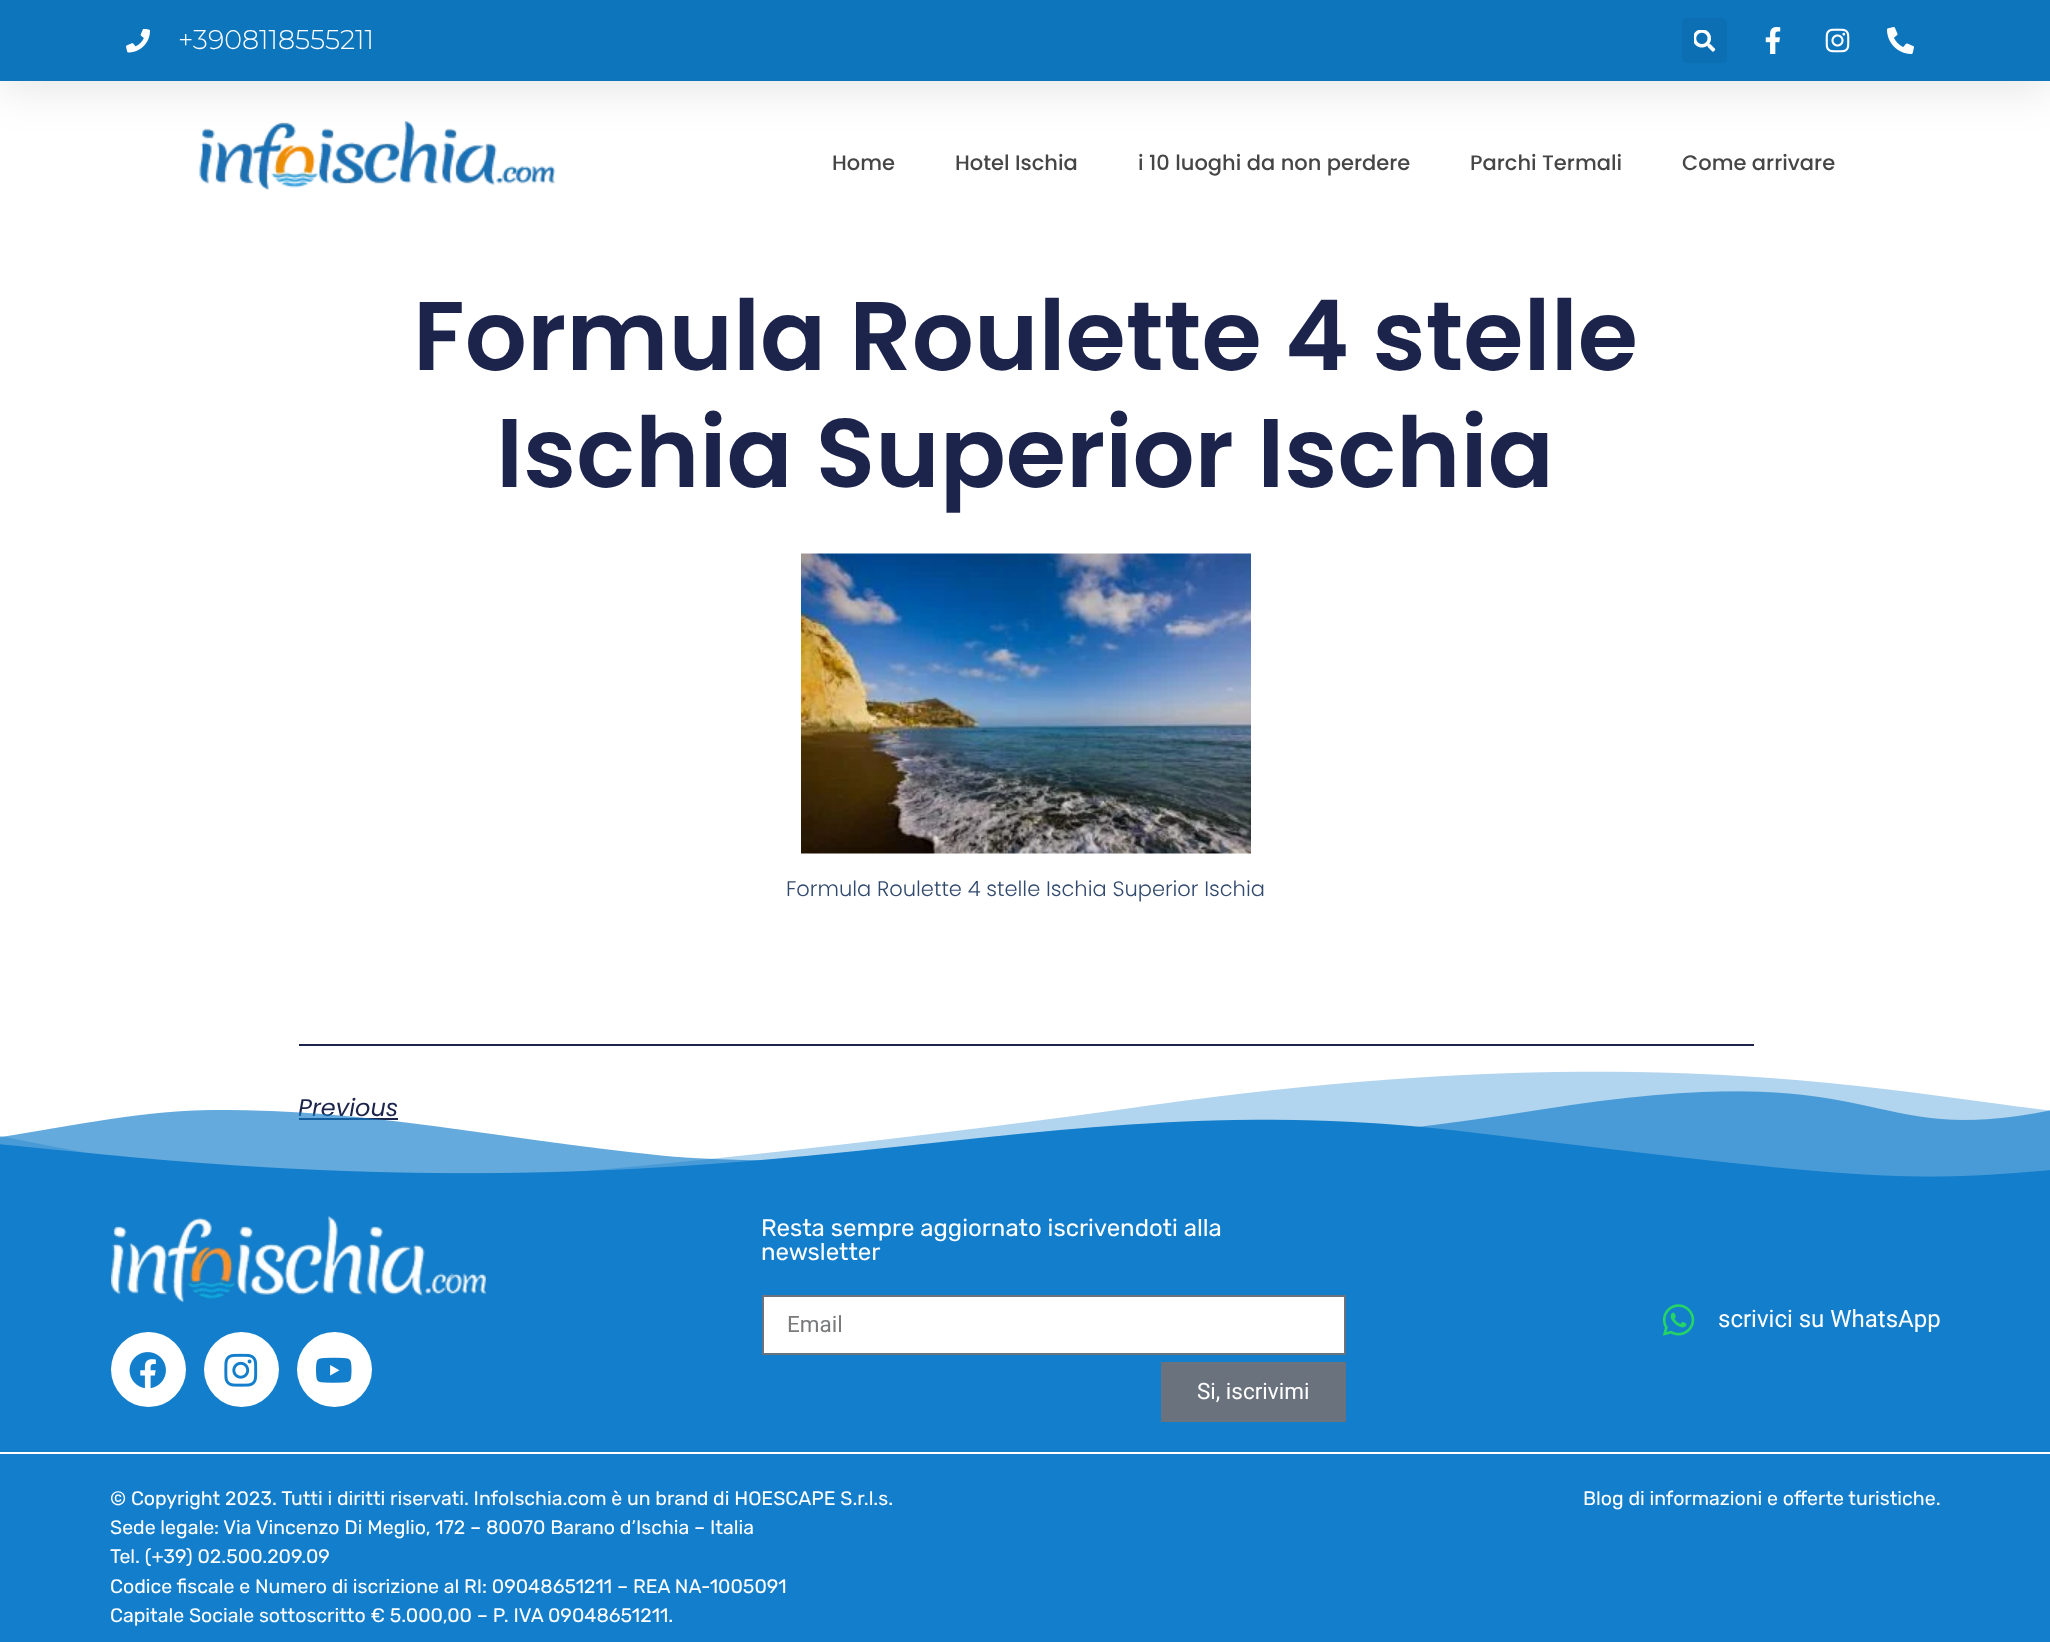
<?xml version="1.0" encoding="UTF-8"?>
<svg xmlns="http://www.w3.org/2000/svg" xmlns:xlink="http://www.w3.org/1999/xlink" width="2050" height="1642">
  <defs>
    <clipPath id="clip1"><rect x="299" y="1091" width="99" height="36" /></clipPath>
  </defs>
  <rect width="100%" height="100%" fill="#ffffff" />
  <image x="199" y="121" width="357" height="69" xlink:href="image6.png" />
  <rect y="8" width="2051" height="81" fill="#000000" fill-opacity="0.1" filter="blur(22.5px)" />
  <rect width="2050" height="81" fill="#0d75bc" />
  <image x="126" y="29" width="24" height="24" xlink:href="image1.png" />
  <rect x="1682" y="18" width="45" height="45" rx="5" fill="#0c6fb3" />
  <image x="1694" y="30" width="22" height="22" xlink:href="image2.png" />
  <image x="1765" y="27" width="16" height="27" xlink:href="image3.png" />
  <image x="1825" y="28" width="25" height="25" xlink:href="image4.png" />
  <image x="1887" y="27" width="27" height="27" xlink:href="image5.png" />
  <image x="801" y="553" width="450" height="301" xlink:href="image7.png" />
  <rect x="299" y="1044" width="1455" height="2" fill="#1c244b" />
  <rect x="299" y="1118" width="99" height="2" fill="#1c244b" />
  <rect y="1187" width="2050" height="265" fill="#137ecb" />
  <image x="111" y="1216" width="375" height="86" xlink:href="image9.png" />
  <circle cx="148.5" cy="1369.5" r="37.5" fill="#ffffff" />
  <image x="129" y="1352" width="37" height="37" xlink:href="image10.png" />
  <circle cx="241.5" cy="1369.5" r="37.5" fill="#ffffff" />
  <image x="224" y="1353" width="34" height="34" xlink:href="image11.png" />
  <circle cx="334.5" cy="1369.5" r="37.5" fill="#ffffff" />
  <image x="316" y="1357" width="36" height="26" xlink:href="image12.png" />
  <rect x="763" y="1296" width="582" height="58" fill="#ffffff" stroke="#69727d" stroke-width="2" />
  <rect x="1161" y="1362" width="185" height="60" fill="#69727d" />
  <image x="1662" y="1304" width="33" height="32" xlink:href="image13.png" />
  <rect y="1454" width="2050" height="188" fill="#137ecb" />
  <text x="178" y="49" style="font-family: Montserrat; font-size: 27px; font-weight: 300; fill: #ffffff">+3908118555211</text>
  <text x="832" y="170" style="font-family: Poppins; font-size: 21px; font-weight: 500; fill: #464646">Home</text>
  <text x="955" y="170" style="font-family: Poppins; font-size: 21px; font-weight: 500; fill: #464646">Hotel Ischia</text>
  <text x="1138" y="170" style="font-family: Poppins; font-size: 21px; font-weight: 500; fill: #464646">i 10 luoghi da non perdere</text>
  <text x="1470" y="170" style="font-family: Poppins; font-size: 21px; font-weight: 500; fill: #464646">Parchi Termali</text>
  <text x="1682" y="170" style="font-family: Poppins; font-size: 21px; font-weight: 500; fill: #464646">Come arrivare</text>
  <text x="413" y="370" style="font-family: Poppins; font-size: 97.5px; font-weight: 600; fill: #1c244b">Formula Roulette 4 stelle</text>
  <text x="496" y="487" style="font-family: Poppins; font-size: 97.5px; font-weight: 600; fill: #1c244b">Ischia Superior Ischia</text>
  <text x="786" y="896" style="font-family: Poppins; font-size: 21px; font-weight: 300; fill: #324a6d">Formula Roulette 4 stelle Ischia Superior Ischia</text>
  <g clip-path="url(#clip1)">
    <text x="298" y="1116" style="font-family: Poppins; font-size: 24px; font-style: italic; fill: #1c244b">Previous</text>
  </g>
  <image x="0" y="1071" width="2050" height="116" xlink:href="image8.png" />
  <text x="761" y="1236" style="font-family: Rubik; font-size: 24px; fill: #ffffff">Resta sempre aggiornato iscrivendoti alla</text>
  <text x="761" y="1260" style="font-family: Rubik; font-size: 24px; fill: #ffffff">newsletter</text>
  <text x="787" y="1332" style="font-family: Roboto; font-size: 22.5px; fill: #797a7c">Email</text>
  <text x="1197" y="1399" style="font-family: Roboto; font-size: 22.5px; fill: #ffffff">Si, iscrivimi</text>
  <text x="1718" y="1327" style="font-family: Roboto; font-size: 24px; fill: #ffffff">scrivici su WhatsApp</text>
  <text x="110" y="1505" style="font-family: Rubik; font-size: 19.5px; fill: #ffffff">© Copyright 2023. Tutti i diritti riservati. InfoIschia.com è un brand di HOESCAPE S.r.l.s.</text>
  <text x="110" y="1534" style="font-family: Rubik; font-size: 19.5px; fill: #ffffff">Sede legale: Via Vincenzo Di Meglio, 172 – 80070 Barano d’Ischia – Italia</text>
  <text x="110" y="1563" style="font-family: Rubik; font-size: 19.5px; fill: #ffffff">Tel. (+39) 02.500.209.09</text>
  <text x="110" y="1593" style="font-family: Rubik; font-size: 19.5px; fill: #ffffff">Codice fiscale e Numero di iscrizione al RI: 09048651211 – REA NA-1005091</text>
  <text x="110" y="1622" style="font-family: Rubik; font-size: 19.5px; fill: #ffffff">Capitale Sociale sottoscritto € 5.000,00 – P. IVA 09048651211.</text>
  <text x="1583" y="1505" style="font-family: Rubik; font-size: 19.5px; fill: #ffffff">Blog di informazioni e offerte turistiche.</text>
</svg>
